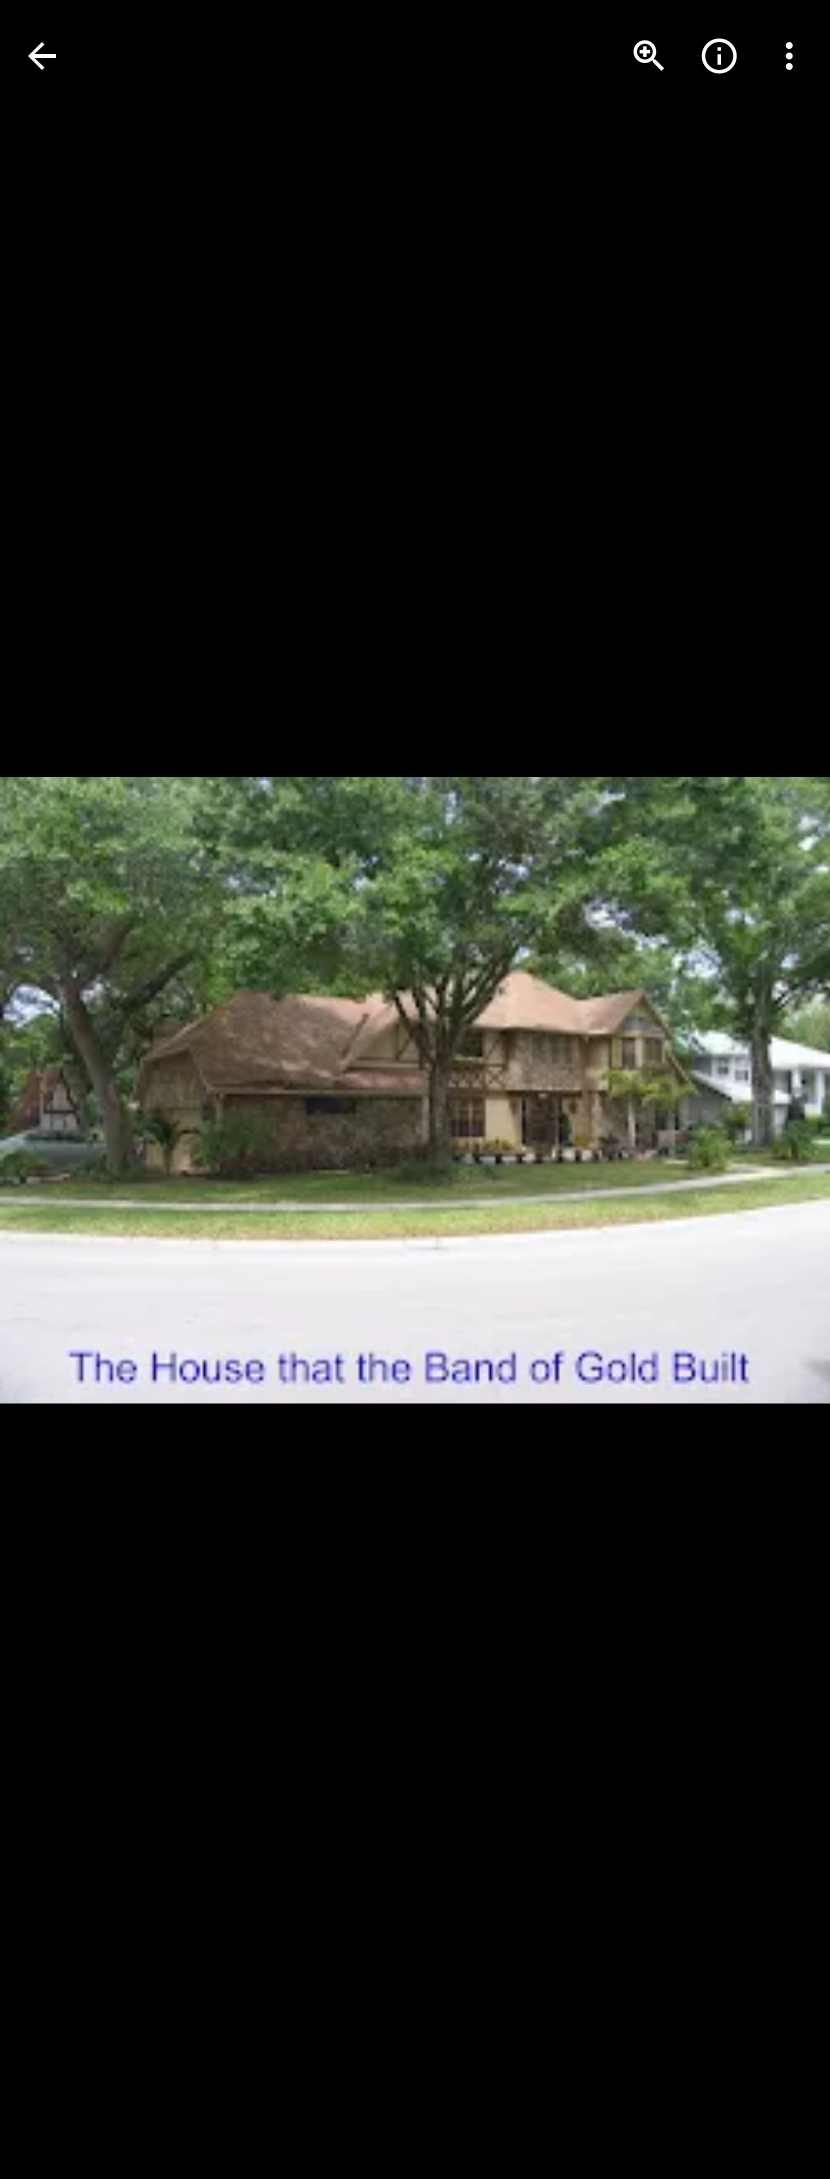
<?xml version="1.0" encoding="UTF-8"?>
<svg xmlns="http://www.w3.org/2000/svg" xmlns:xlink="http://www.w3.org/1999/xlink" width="830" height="2179">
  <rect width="100%" height="100%" fill="#000000" />
  <path d="M 56 54 h -21.5 l 10 -9.5 l -2.5 -2.5 l -14 14 l 14 14 l 2.5 -2.5 l -10 -9.5 h 21.5 z" fill="#ffffff" />
  <image x="633" y="40" width="31" height="31" xlink:href="image1.png" />
  <image x="701" y="38" width="36" height="36" xlink:href="image2.png" />
  <image x="785" y="42" width="8" height="28" xlink:href="image3.png" />
  <image x="0" y="777" width="830" height="627" xlink:href="image4.png" />
</svg>
